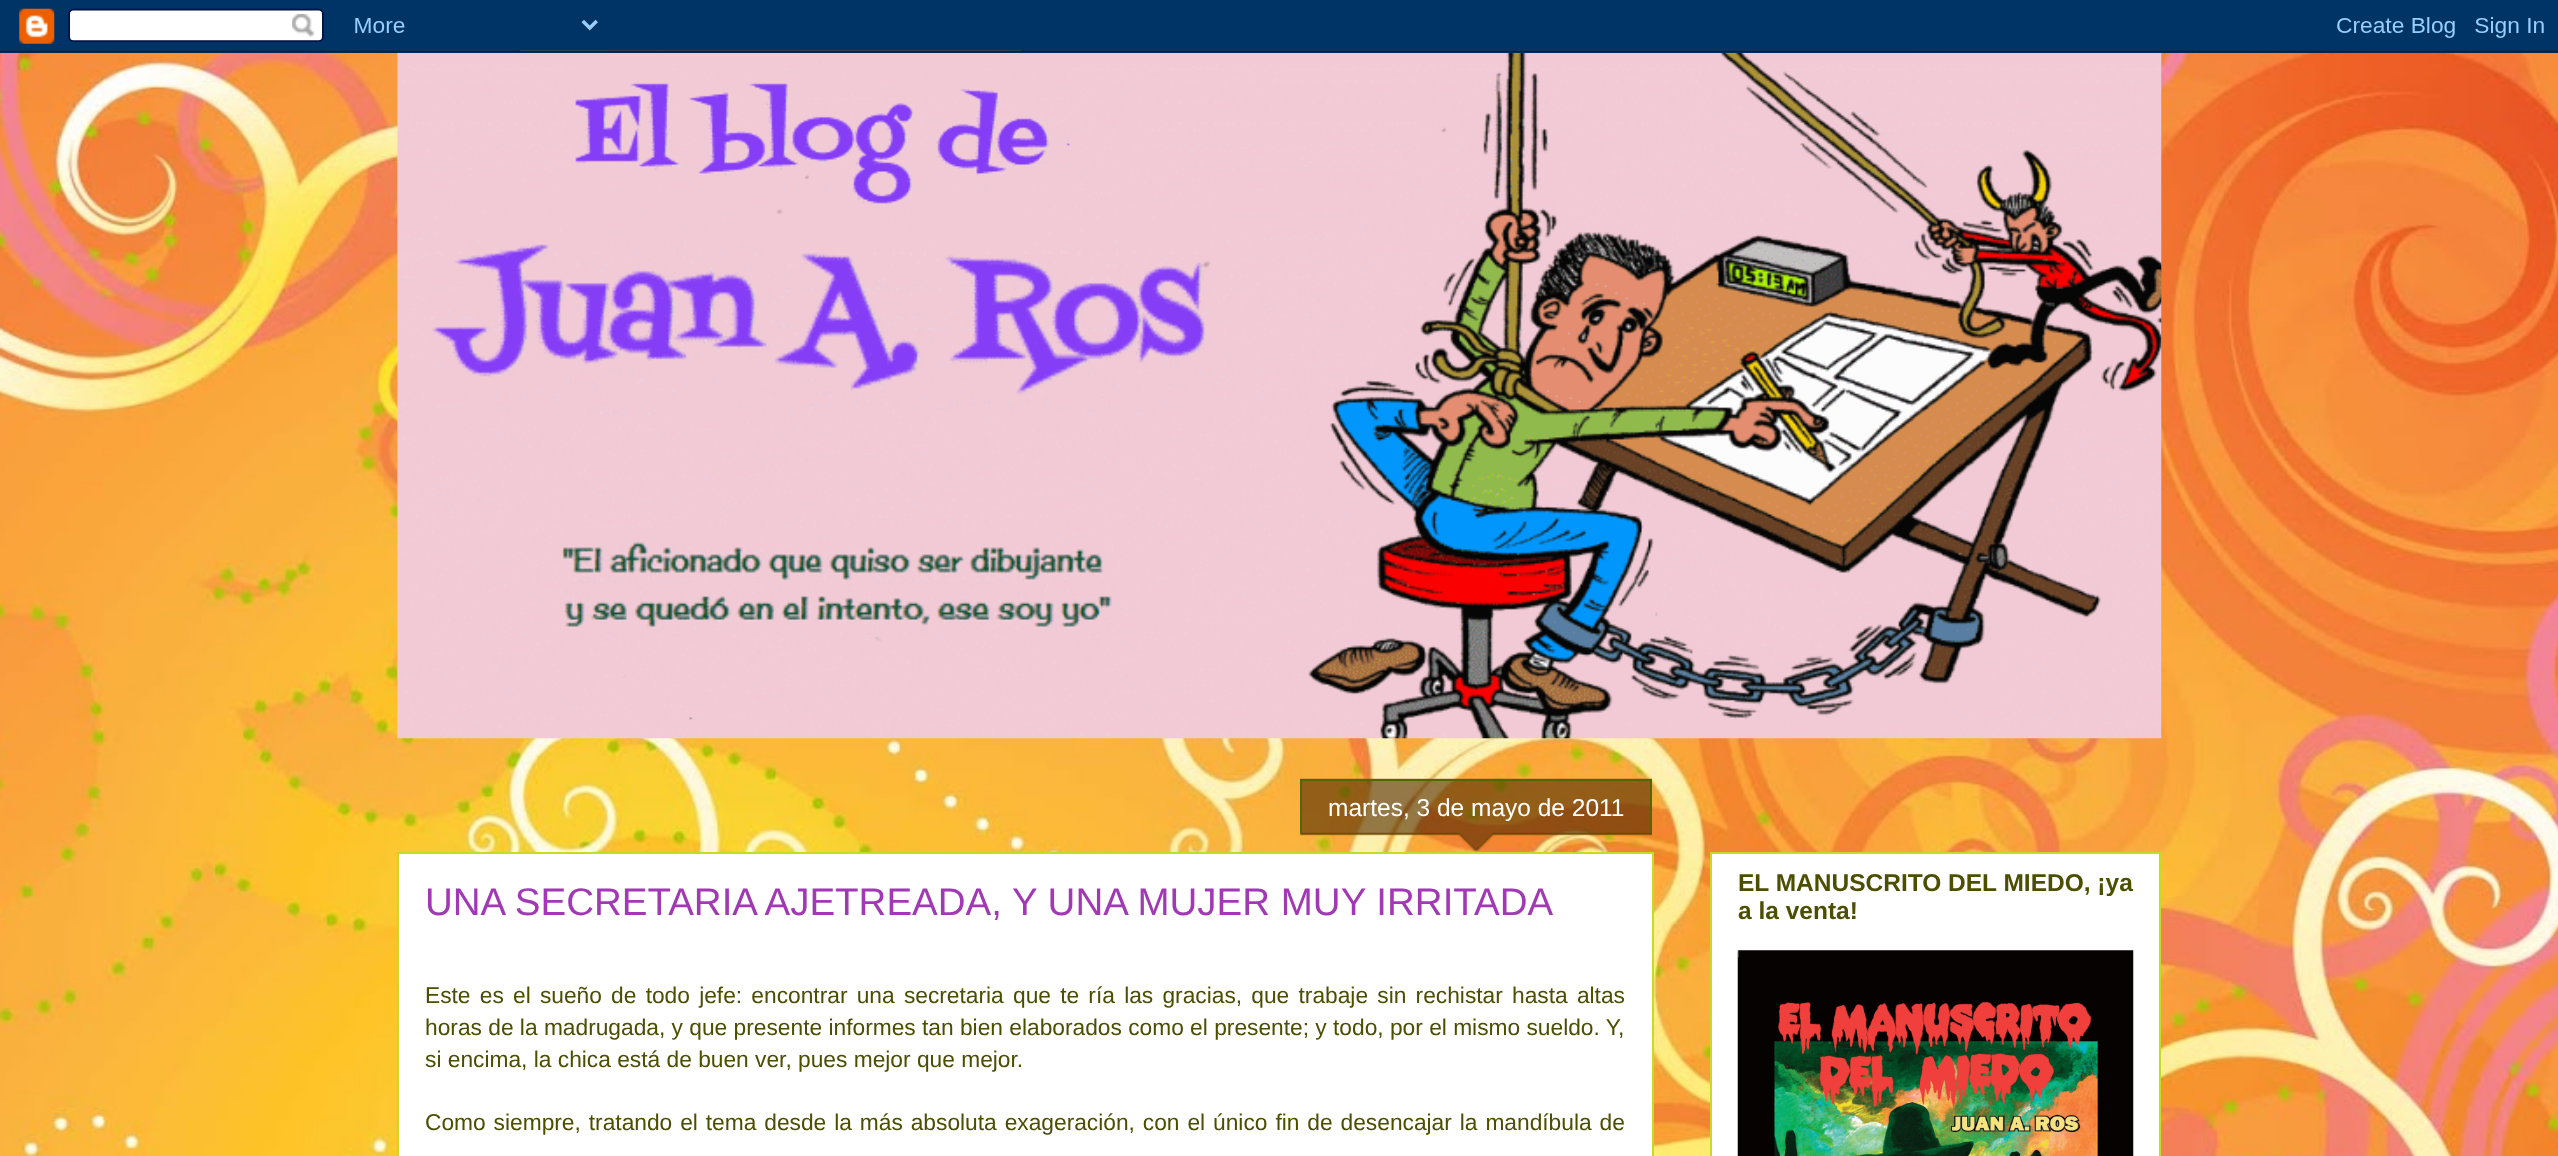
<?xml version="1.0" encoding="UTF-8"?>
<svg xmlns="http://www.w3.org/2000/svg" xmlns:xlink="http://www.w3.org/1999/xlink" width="2558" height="1156">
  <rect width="100%" height="100%" fill="#ffffff" />
  <image x="0" y="50" width="2558" height="1106" xlink:href="image1.png" />
  <image x="0" y="0" width="2558" height="53" xlink:href="image2.png" />
  <image x="397" y="53" width="1765" height="686" xlink:href="image3.png" />
  <rect x="398" y="853" width="1255" height="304" fill="#ffffff" stroke="#c5dc22" stroke-width="2" />
  <image x="1300" y="778" width="352" height="73" xlink:href="image4.png" />
  <rect x="1300" y="779" width="352" height="2" fill="#546600" />
  <rect x="1650" y="781" width="2" height="52" fill="#546600" />
  <rect x="1300" y="781" width="2" height="52" fill="#546600" />
  <rect x="1711" y="853" width="449" height="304" fill="#ffffff" stroke="#c5dc22" stroke-width="2" />
  <image x="1737" y="950" width="397" height="206" xlink:href="image5.png" />
  <text x="1328" y="816" style="font-family: Liberation Sans; font-size: 24.5px; fill: #ffffff">martes, 3 de mayo de 2011</text>
  <text x="425" y="915" style="font-family: Liberation Sans; font-size: 38.5px; fill: #a139b5">UNA SECRETARIA AJETREADA, Y UNA MUJER MUY IRRITADA</text>
  <text x="425" y="1003" word-spacing="2.9" style="font-family: Liberation Sans; font-size: 22.75px; fill: #4c4e00">Este es el sueño de todo jefe: encontrar una secretaria que te ría las gracias, que trabaje sin rechistar hasta altas</text>
  <text x="425" y="1035" style="font-family: Liberation Sans; font-size: 22.75px; fill: #4c4e00">horas de la madrugada, y que presente informes tan bien elaborados como el presente; y todo, por el mismo sueldo. Y,</text>
  <text x="425" y="1067" style="font-family: Liberation Sans; font-size: 22.75px; fill: #4c4e00">si encima, la chica está de buen ver, pues mejor que mejor.</text>
  <text x="425" y="1130" word-spacing="1.6" style="font-family: Liberation Sans; font-size: 22.75px; fill: #4c4e00">Como siempre, tratando el tema desde la más absoluta exageración, con el único fin de desencajar la mandíbula de</text>
  <text x="1738" y="891" style="font-family: Liberation Sans; font-size: 24.5px; font-weight: bold; fill: #4c4e00">EL MANUSCRITO DEL MIEDO, ¡ya</text>
  <text x="1738" y="919" style="font-family: Liberation Sans; font-size: 24.5px; font-weight: bold; fill: #4c4e00">a la venta!</text>
</svg>
